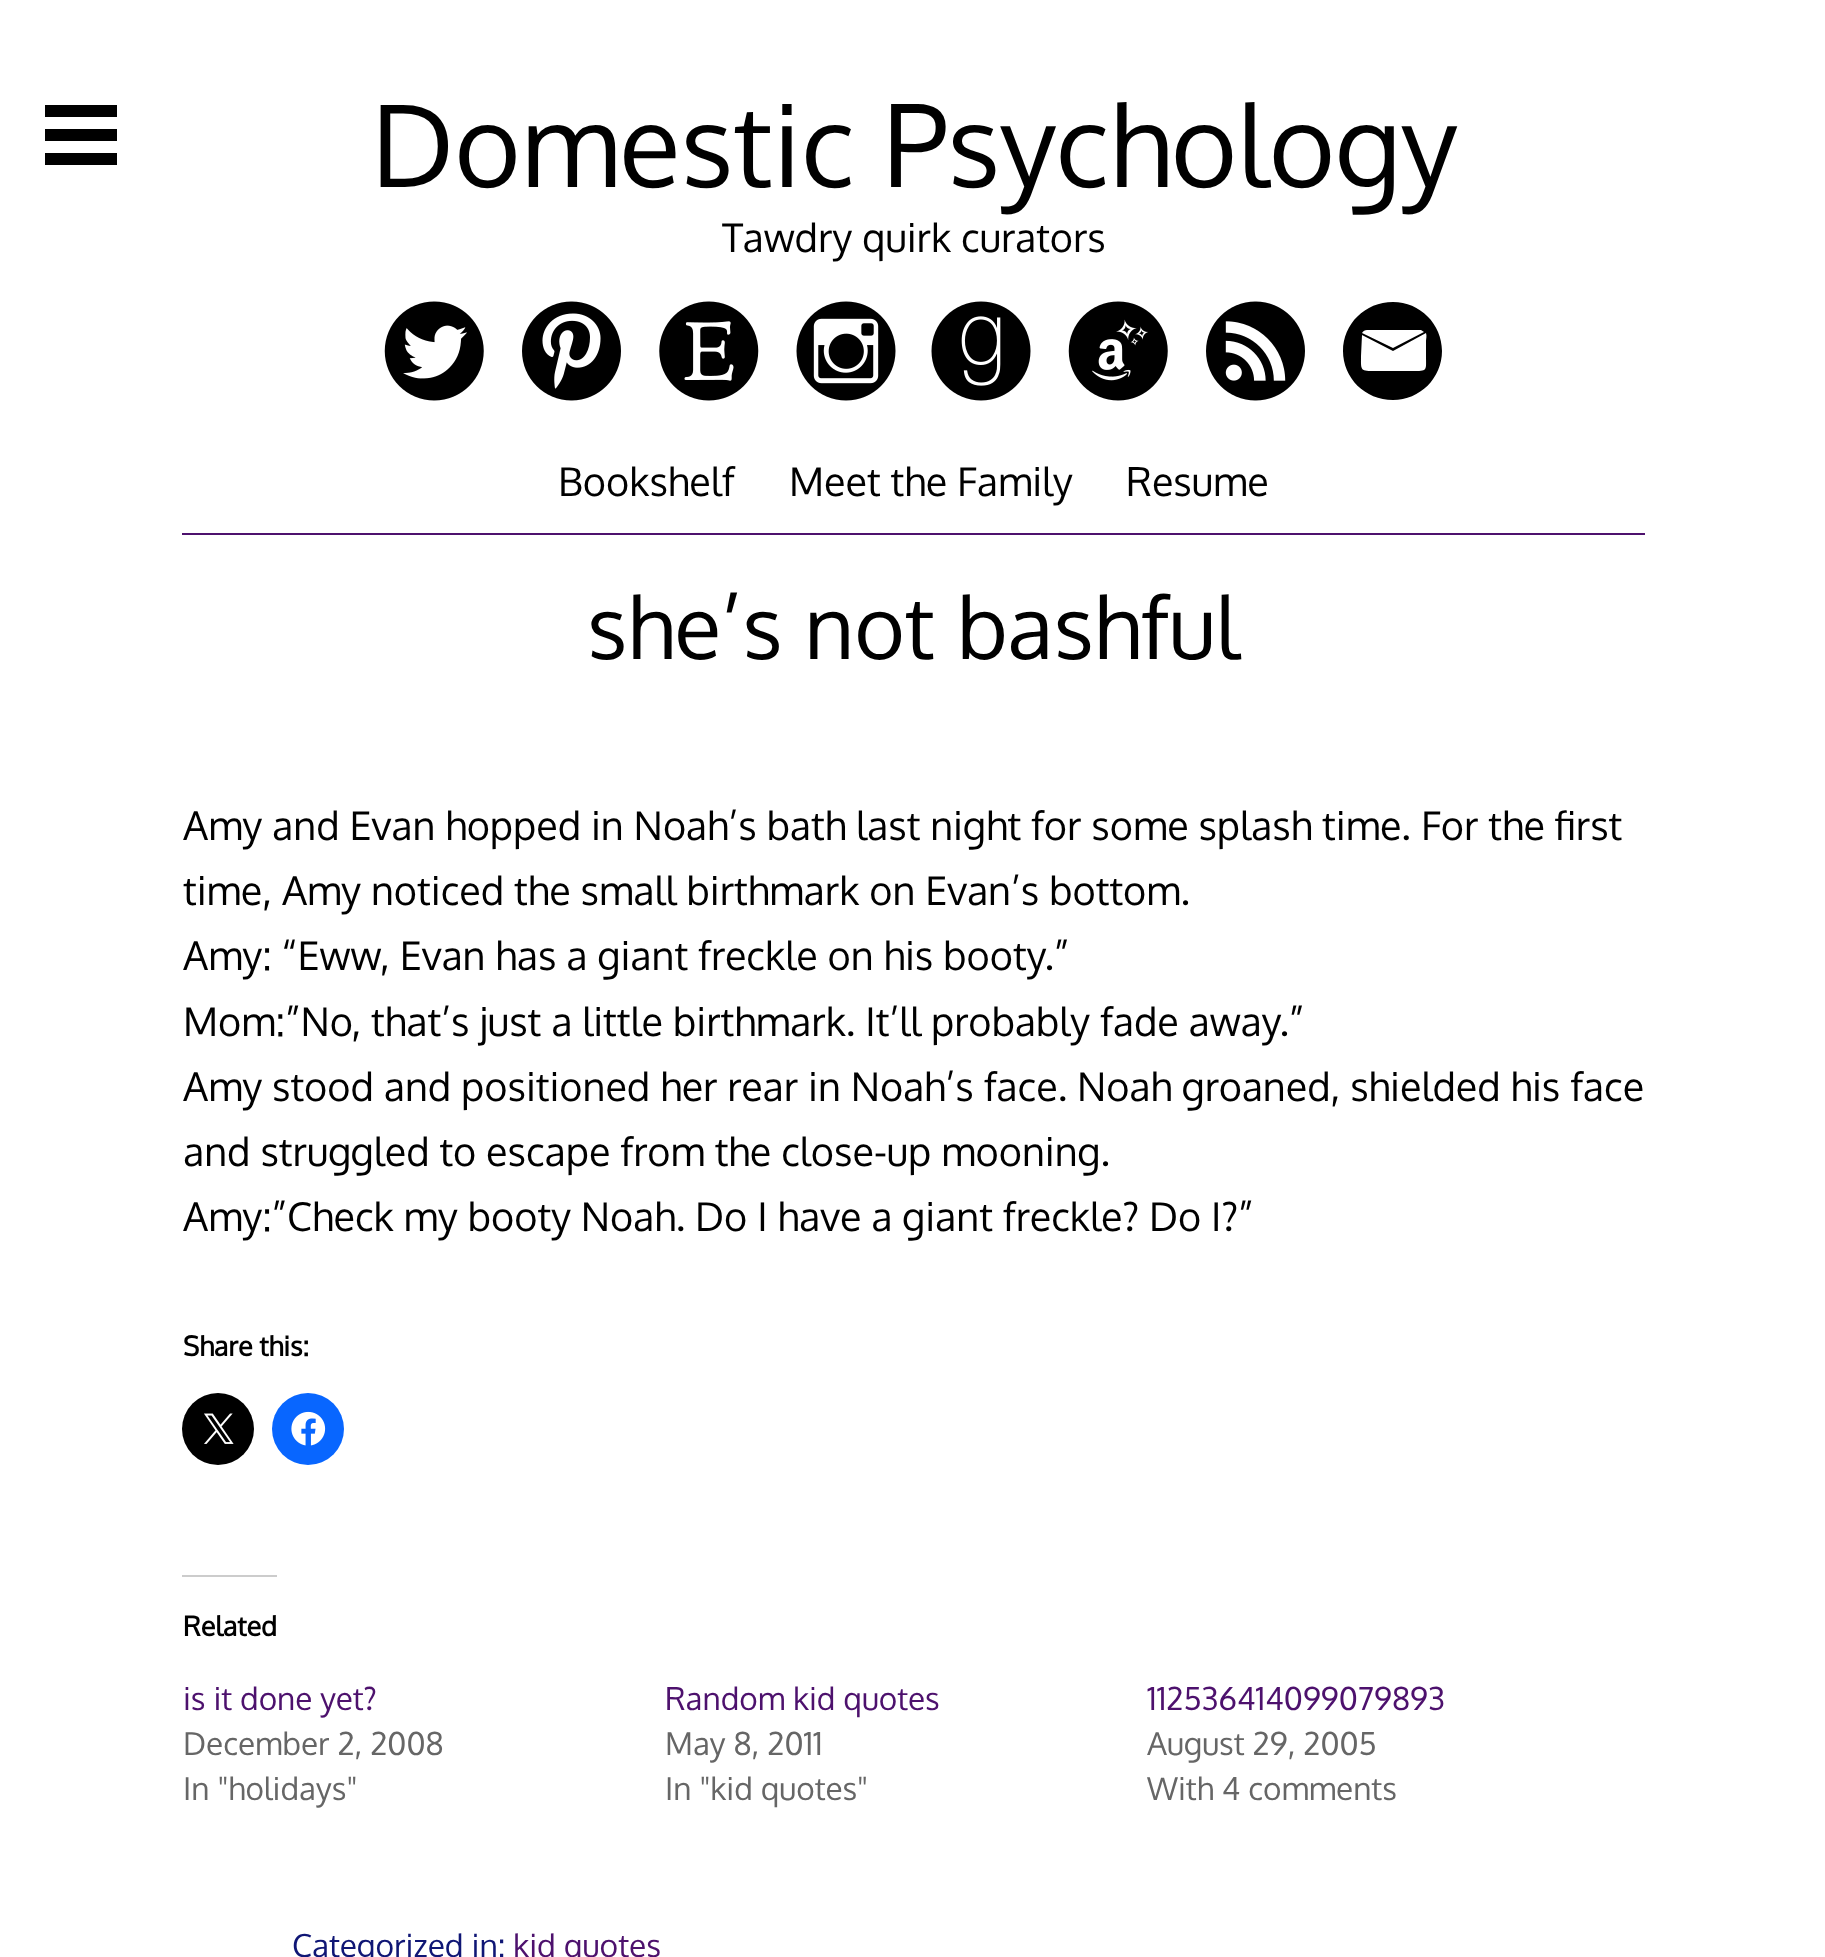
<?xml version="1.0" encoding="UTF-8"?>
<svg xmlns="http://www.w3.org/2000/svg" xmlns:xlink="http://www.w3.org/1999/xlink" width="1825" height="1957">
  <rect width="100%" height="100%" fill="#ffffff" />
  <rect x="45" y="105" width="72" height="12" fill="#000000" />
  <rect x="45" y="129" width="72" height="12" fill="#000000" />
  <rect x="45" y="153" width="72" height="12" fill="#000000" />
  <rect x="182" y="533" width="1463" height="2" fill="#4d116d" />
  <image x="384" y="301" width="100" height="100" xlink:href="image1.png" />
  <image x="522" y="301" width="99" height="100" xlink:href="image2.png" />
  <image x="659" y="301" width="100" height="100" xlink:href="image3.png" />
  <image x="796" y="301" width="100" height="100" xlink:href="image4.png" />
  <image x="931" y="301" width="100" height="100" xlink:href="image5.png" />
  <image x="1068" y="301" width="100" height="100" xlink:href="image6.png" />
  <image x="1206" y="301" width="99" height="100" xlink:href="image7.png" />
  <path d="M 1367 330 c -2 0 -4 1 -5 3 l 31 15 l 31 -16 l -3 -2 z m -5 5 l -1 21 c 0 15 -1 15 15 15 h 36 c 16 0 14 0 14 -15 v -15 c 0 -2 1 -5 0 -8 l -33 18 z m 31 -33 c 27 0 49 22 49 49 c 0 27 -22 49 -49 49 c -28 0 -50 -22 -50 -49 c 0 -27 22 -49 50 -49 z m 36 30 l -1 -2 z" fill="#000000" fill-rule="evenodd" />
  <circle cx="218" cy="1429" r="36" fill="#000000" />
  <image x="204" y="1413" width="30" height="31" xlink:href="image8.png" />
  <circle cx="308" cy="1429" r="36" fill="#0866ff" />
  <image x="291" y="1411" width="35" height="35" xlink:href="image9.png" />
  <rect x="182" y="1575" width="95" height="2" fill="#cccccc" />
  <text x="371" y="187" style="font-family: Oxygen; font-size: 113.5px; fill: #000000">Domestic Psychology</text>
  <text x="722" y="252" style="font-family: Oxygen; font-size: 39.6px; fill: #000000">Tawdry quirk curators</text>
  <text x="558" y="496" style="font-family: Oxygen; font-size: 39.6px; fill: #000000">Bookshelf</text>
  <text x="789" y="496" style="font-family: Oxygen; font-size: 39.6px; fill: #000000">Meet the Family</text>
  <text x="1126" y="496" style="font-family: Oxygen; font-size: 39.6px; fill: #000000">Resume</text>
  <text x="587" y="659" style="font-family: Oxygen; font-size: 86.5px; fill: #000000">she’s not bashful</text>
  <text x="183" y="840" style="font-family: Oxygen; font-size: 39.6px; fill: #000000">Amy and Evan hopped in Noah’s bath last night for some splash time.</text>
  <text x="1421" y="840" style="font-family: Oxygen; font-size: 39.6px; fill: #000000">For the first</text>
  <text x="183" y="905" style="font-family: Oxygen; font-size: 39.6px; fill: #000000">time, Amy noticed the small birthmark on Evan’s bottom.</text>
  <text x="183" y="970" style="font-family: Oxygen; font-size: 39.6px; fill: #000000">Amy: “Eww, Evan has a giant freckle on his booty.”</text>
  <text x="183" y="1036" style="font-family: Oxygen; font-size: 39.6px; fill: #000000">Mom:”No, that’s just a little birthmark. It’ll probably fade away.”</text>
  <text x="183" y="1101" style="font-family: Oxygen; font-size: 39.6px; fill: #000000">Amy stood and positioned her rear in Noah’s face.</text>
  <text x="1077" y="1101" style="font-family: Oxygen; font-size: 39.6px; fill: #000000">Noah groaned, shielded his face</text>
  <text x="183" y="1166" style="font-family: Oxygen; font-size: 39.6px; fill: #000000">and struggled to escape from the close-up mooning.</text>
  <text x="183" y="1231" style="font-family: Oxygen; font-size: 39.6px; fill: #000000">Amy:”Check my booty Noah. Do I have a giant freckle? Do I?”</text>
  <text x="183" y="1356" style="font-family: Oxygen; font-size: 27px; font-weight: bold; fill: #000000">Share this:</text>
  <text x="183" y="1636" style="font-family: Oxygen; font-size: 27px; font-weight: bold; fill: #000000">Related</text>
  <text x="183" y="1710" style="font-family: Oxygen; font-size: 31.5px; fill: #4d116d">is it done yet?</text>
  <text x="183" y="1755" style="font-family: Oxygen; font-size: 31.5px; fill: #666666">December 2, 2008</text>
  <text x="183" y="1800" style="font-family: Oxygen; font-size: 31.5px; fill: #666666">In "holidays"</text>
  <text x="665" y="1710" style="font-family: Oxygen; font-size: 31.5px; fill: #4d116d">Random kid quotes</text>
  <text x="665" y="1755" style="font-family: Oxygen; font-size: 31.5px; fill: #666666">May 8, 2011</text>
  <text x="665" y="1800" style="font-family: Oxygen; font-size: 31.5px; fill: #666666">In "kid quotes"</text>
  <text x="1147" y="1710" style="font-family: Oxygen; font-size: 31.5px; fill: #4d116d">112536414099079893</text>
  <text x="1147" y="1755" style="font-family: Oxygen; font-size: 31.5px; fill: #666666">August 29, 2005</text>
  <text x="1147" y="1800" style="font-family: Oxygen; font-size: 31.5px; fill: #666666">With 4 comments</text>
  <text x="292" y="1957" style="font-family: Oxygen; font-size: 31.75px; fill: #0f1675">Categorized in:</text>
  <text x="513" y="1957" style="font-family: Oxygen; font-size: 31.75px; fill: #4d116d">kid quotes</text>
</svg>
